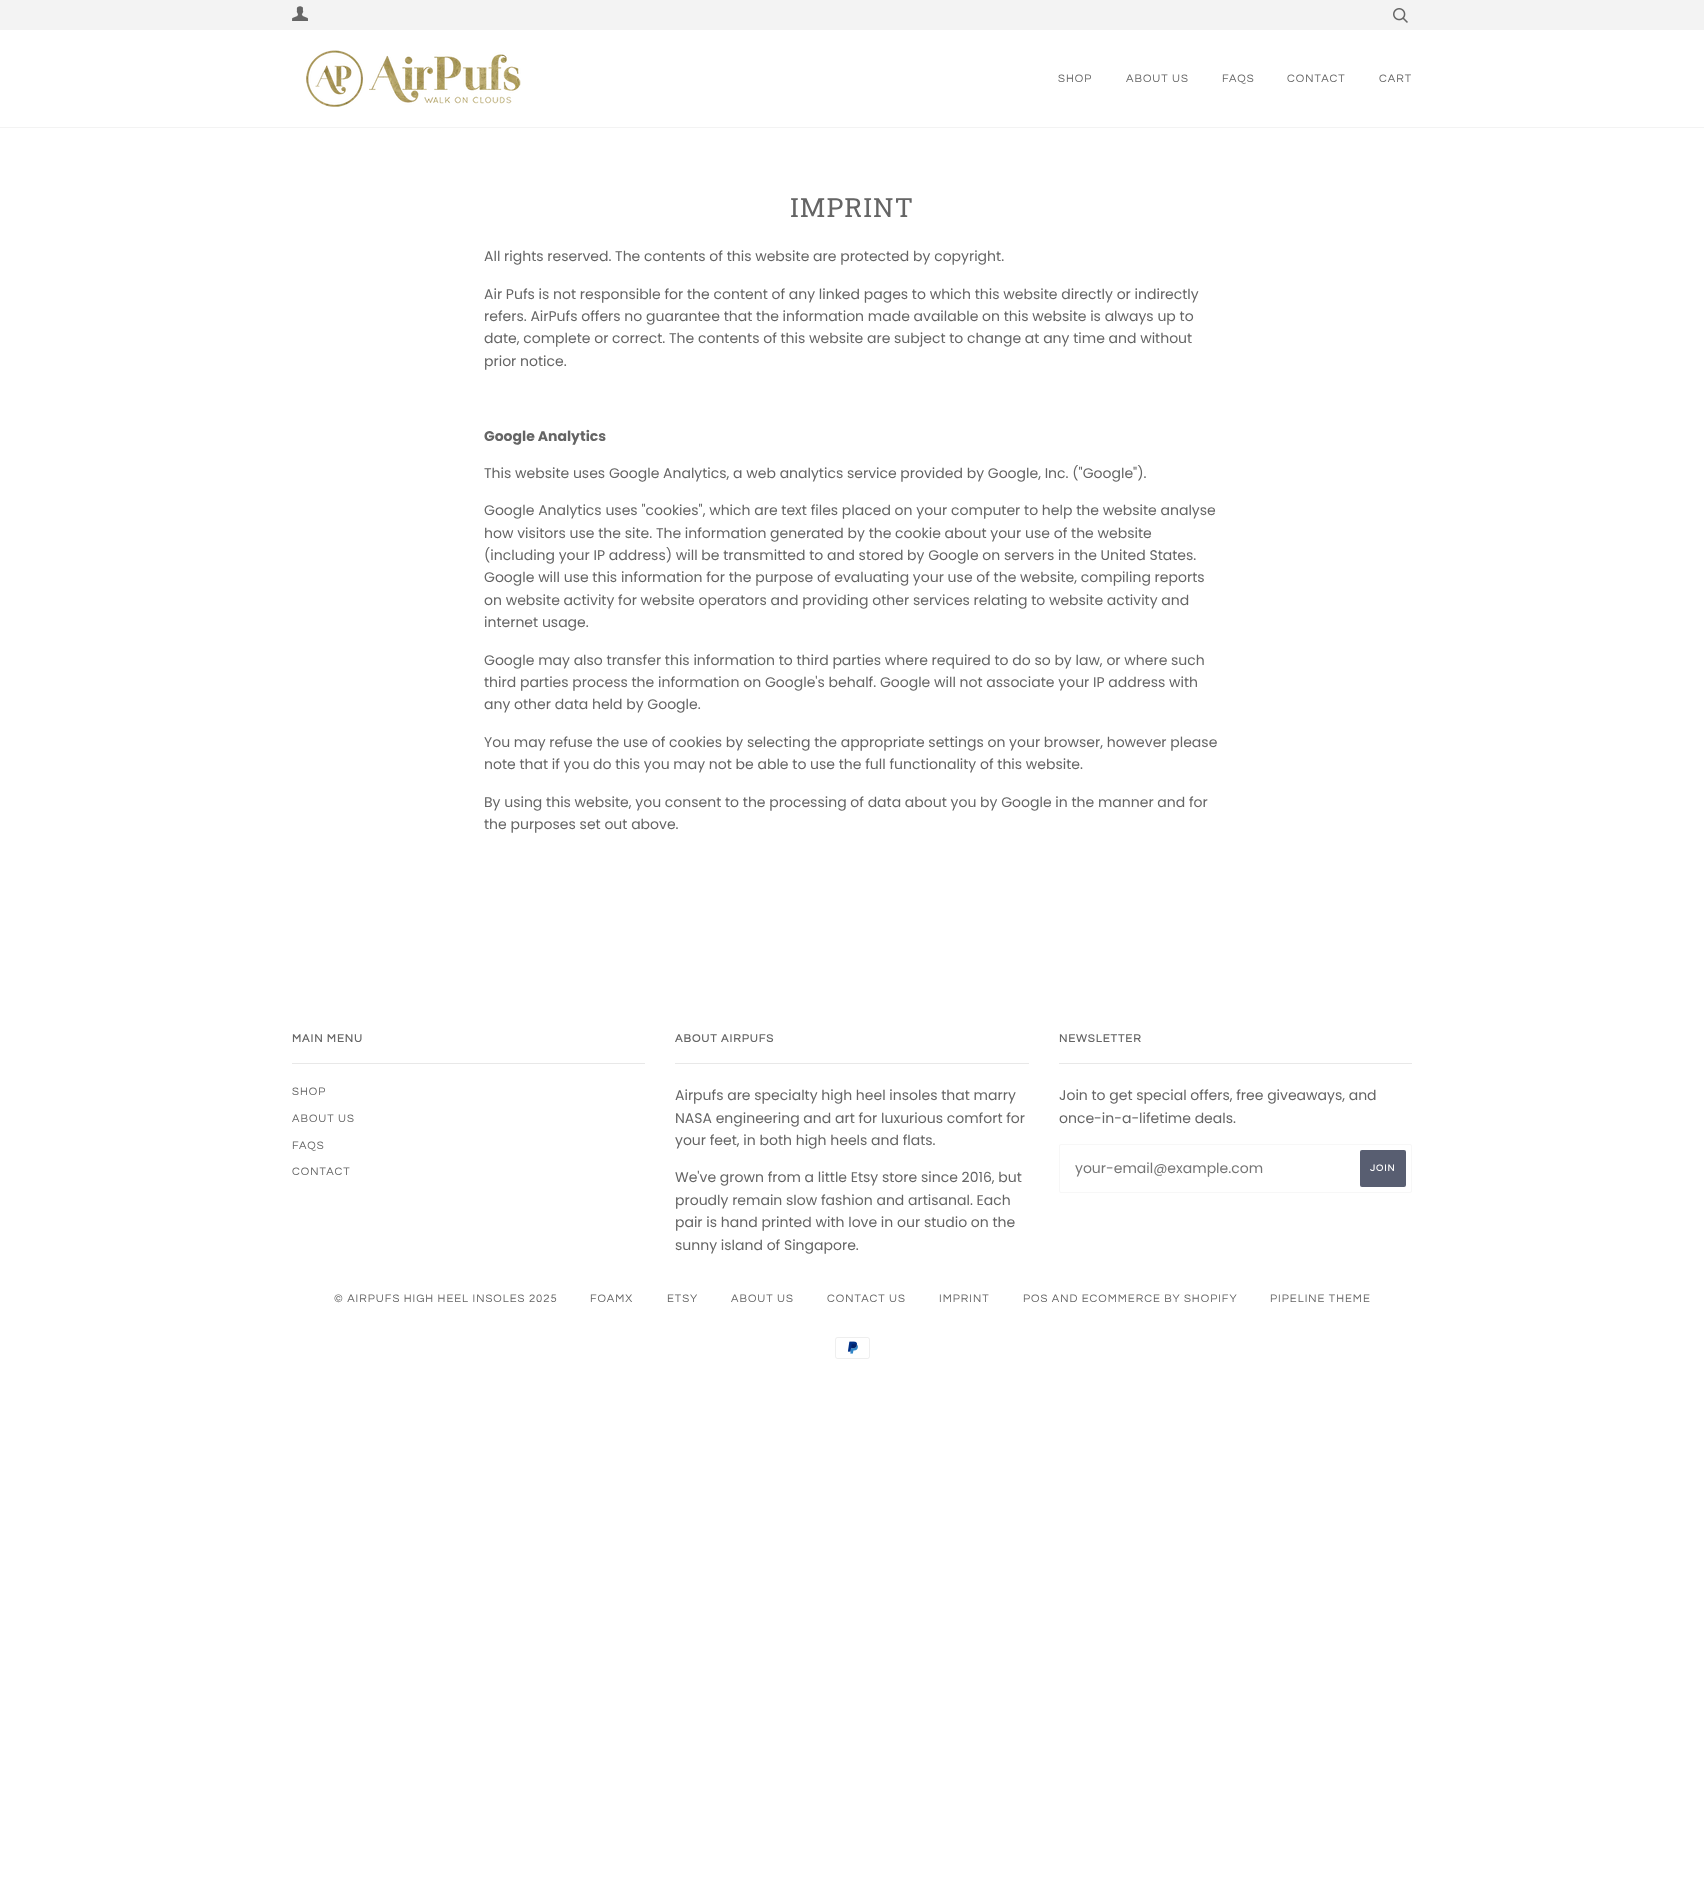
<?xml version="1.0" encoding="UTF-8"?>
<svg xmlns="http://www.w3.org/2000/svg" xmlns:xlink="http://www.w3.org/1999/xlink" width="1704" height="1896">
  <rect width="100%" height="100%" fill="#ffffff" />
  <rect width="1704" height="30" fill="#f3f3f3" />
  <image x="292" y="6" width="16" height="15" xlink:href="image1.png" />
  <image x="1393" y="8" width="15" height="15" xlink:href="image2.png" />
  <rect y="127" width="1704" height="1" fill="#f3f3f3" />
  <image x="306" y="50" width="215" height="57" xlink:href="image3.png" />
  <rect x="292" y="1063" width="353" height="1" fill="#e8e8e8" />
  <rect x="675" y="1063" width="354" height="1" fill="#e8e8e8" />
  <rect x="1059" y="1063" width="353" height="1" fill="#e8e8e8" />
  <rect x="1059.5" y="1144.5" width="352" height="48" rx="1.5" fill="none" stroke="#f7f7f7" />
  <rect x="1360" y="1150" width="46" height="37" rx="2" fill="#585e71" />
  <image x="835" y="1337" width="35" height="22" xlink:href="image4.png" />
  <text x="1058" y="82" style="font-family: Questrial; font-size: 11.25px; letter-spacing: 1px; fill: #656565">SHOP</text>
  <text x="1126" y="82" style="font-family: Questrial; font-size: 11.25px; letter-spacing: 1px; fill: #656565">ABOUT US</text>
  <text x="1222" y="82" style="font-family: Questrial; font-size: 11.25px; letter-spacing: 1px; fill: #656565">FAQS</text>
  <text x="1287" y="82" style="font-family: Questrial; font-size: 11.25px; letter-spacing: 1px; fill: #656565">CONTACT</text>
  <text x="1379" y="82" style="font-family: Questrial; font-size: 11.25px; letter-spacing: 1px; fill: #656565">CART</text>
  <text x="790" y="217" style="font-family: Roboto Slab; font-size: 26.5px; letter-spacing: 1px; fill: #656565">IMPRINT</text>
  <text x="484" y="261" style="font-family: Poppins; font-size: 14px; fill: #656565">All rights reserved. The contents of this website are protected by copyright.</text>
  <text x="484" y="299" style="font-family: Poppins; font-size: 14px; fill: #656565">Air Pufs is not responsible for the content of any linked pages to which this website directly or indirectly</text>
  <text x="484" y="321" style="font-family: Poppins; font-size: 14px; fill: #656565">refers. AirPufs offers no guarantee that the information made available on this website is always up to</text>
  <text x="484" y="343" style="font-family: Poppins; font-size: 14px; fill: #656565">date, complete or correct. The contents of this website are subject to change at any time and without</text>
  <text x="484" y="366" style="font-family: Poppins; font-size: 14px; fill: #656565">prior notice.</text>
  <text x="484" y="441" style="font-family: Poppins; font-size: 14px; font-weight: bold; fill: #656565">Google Analytics</text>
  <text x="484" y="478" style="font-family: Poppins; font-size: 14px; fill: #656565">This website uses Google Analytics, a web analytics service provided by Google, Inc. ("Google").</text>
  <text x="484" y="515" style="font-family: Poppins; font-size: 14px; fill: #656565">Google Analytics uses "cookies", which are text files placed on your computer to help the website analyse</text>
  <text x="484" y="538" style="font-family: Poppins; font-size: 14px; fill: #656565">how visitors use the site. The information generated by the cookie about your use of the website</text>
  <text x="484" y="560" style="font-family: Poppins; font-size: 14px; fill: #656565">(including your IP address) will be transmitted to and stored by Google on servers in the United States.</text>
  <text x="484" y="582" style="font-family: Poppins; font-size: 14px; fill: #656565">Google will use this information for the purpose of evaluating your use of the website, compiling reports</text>
  <text x="484" y="605" style="font-family: Poppins; font-size: 14px; fill: #656565">on website activity for website operators and providing other services relating to website activity and</text>
  <text x="484" y="627" style="font-family: Poppins; font-size: 14px; fill: #656565">internet usage.</text>
  <text x="484" y="665" style="font-family: Poppins; font-size: 14px; fill: #656565">Google may also transfer this information to third parties where required to do so by law, or where such</text>
  <text x="484" y="687" style="font-family: Poppins; font-size: 14px; fill: #656565">third parties process the information on Google's behalf. Google will not associate your IP address with</text>
  <text x="484" y="709" style="font-family: Poppins; font-size: 14px; fill: #656565">any other data held by Google.</text>
  <text x="484" y="747" style="font-family: Poppins; font-size: 14px; fill: #656565">You may refuse the use of cookies by selecting the appropriate settings on your browser, however please</text>
  <text x="484" y="769" style="font-family: Poppins; font-size: 14px; fill: #656565">note that if you do this you may not be able to use the full functionality of this website.</text>
  <text x="484" y="807" style="font-family: Poppins; font-size: 14px; fill: #656565">By using this website, you consent to the processing of data about you by Google in the manner and for</text>
  <text x="484" y="829" style="font-family: Poppins; font-size: 14px; fill: #656565">the purposes set out above.</text>
  <text x="292" y="1042" style="font-family: Questrial; font-size: 11.25px; font-weight: bold; letter-spacing: 1px; fill: #656565">MAIN MENU</text>
  <text x="292" y="1095" style="font-family: Questrial; font-size: 11.25px; letter-spacing: 1px; fill: #656565">SHOP</text>
  <text x="292" y="1122" style="font-family: Questrial; font-size: 11.25px; letter-spacing: 1px; fill: #656565">ABOUT US</text>
  <text x="292" y="1149" style="font-family: Questrial; font-size: 11.25px; letter-spacing: 1px; fill: #656565">FAQS</text>
  <text x="292" y="1175" style="font-family: Questrial; font-size: 11.25px; letter-spacing: 1px; fill: #656565">CONTACT</text>
  <text x="675" y="1042" style="font-family: Questrial; font-size: 11.25px; font-weight: bold; letter-spacing: 1px; fill: #656565">ABOUT AIRPUFS</text>
  <text x="675" y="1100" style="font-family: Poppins; font-size: 14px; fill: #656565">Airpufs are specialty high heel insoles that marry</text>
  <text x="675" y="1123" style="font-family: Poppins; font-size: 14px; fill: #656565">NASA engineering and art for luxurious comfort for</text>
  <text x="675" y="1145" style="font-family: Poppins; font-size: 14px; fill: #656565">your feet, in both high heels and flats.</text>
  <text x="675" y="1182" style="font-family: Poppins; font-size: 14px; fill: #656565">We've grown from a little Etsy store since 2016, but</text>
  <text x="675" y="1205" style="font-family: Poppins; font-size: 14px; fill: #656565">proudly remain slow fashion and artisanal. Each</text>
  <text x="675" y="1227" style="font-family: Poppins; font-size: 14px; fill: #656565">pair is hand printed with love in our studio on the</text>
  <text x="675" y="1250" style="font-family: Poppins; font-size: 14px; fill: #656565">sunny island of Singapore.</text>
  <text x="1059" y="1042" style="font-family: Questrial; font-size: 11.25px; font-weight: bold; letter-spacing: 1px; fill: #656565">NEWSLETTER</text>
  <text x="1059" y="1100" style="font-family: Poppins; font-size: 14px; fill: #656565">Join to get special offers, free giveaways, and</text>
  <text x="1059" y="1123" style="font-family: Poppins; font-size: 14px; fill: #656565">once-in-a-lifetime deals.</text>
  <text x="1075" y="1173" style="font-family: Poppins; font-size: 14px; fill: #757575">your-email@example.com</text>
  <text x="1370" y="1171" style="font-family: Questrial; font-size: 9.5px; font-weight: bold; letter-spacing: 1px; fill: #ffffff">JOIN</text>
  <text x="334" y="1302" style="font-family: Questrial; font-size: 11.25px; letter-spacing: 1px; fill: #656565">© AIRPUFS HIGH HEEL INSOLES 2025</text>
  <text x="590" y="1302" style="font-family: Questrial; font-size: 11.25px; letter-spacing: 1px; fill: #656565">FOAMX</text>
  <text x="667" y="1302" style="font-family: Questrial; font-size: 11.25px; letter-spacing: 1px; fill: #656565">ETSY</text>
  <text x="731" y="1302" style="font-family: Questrial; font-size: 11.25px; letter-spacing: 1px; fill: #656565">ABOUT US</text>
  <text x="827" y="1302" style="font-family: Questrial; font-size: 11.25px; letter-spacing: 1px; fill: #656565">CONTACT US</text>
  <text x="939" y="1302" style="font-family: Questrial; font-size: 11.25px; letter-spacing: 1px; fill: #656565">IMPRINT</text>
  <text x="1023" y="1302" style="font-family: Questrial; font-size: 11.25px; letter-spacing: 1px; fill: #656565">POS AND ECOMMERCE BY SHOPIFY</text>
  <text x="1270" y="1302" style="font-family: Questrial; font-size: 11.25px; letter-spacing: 1px; fill: #656565">PIPELINE THEME</text>
</svg>
